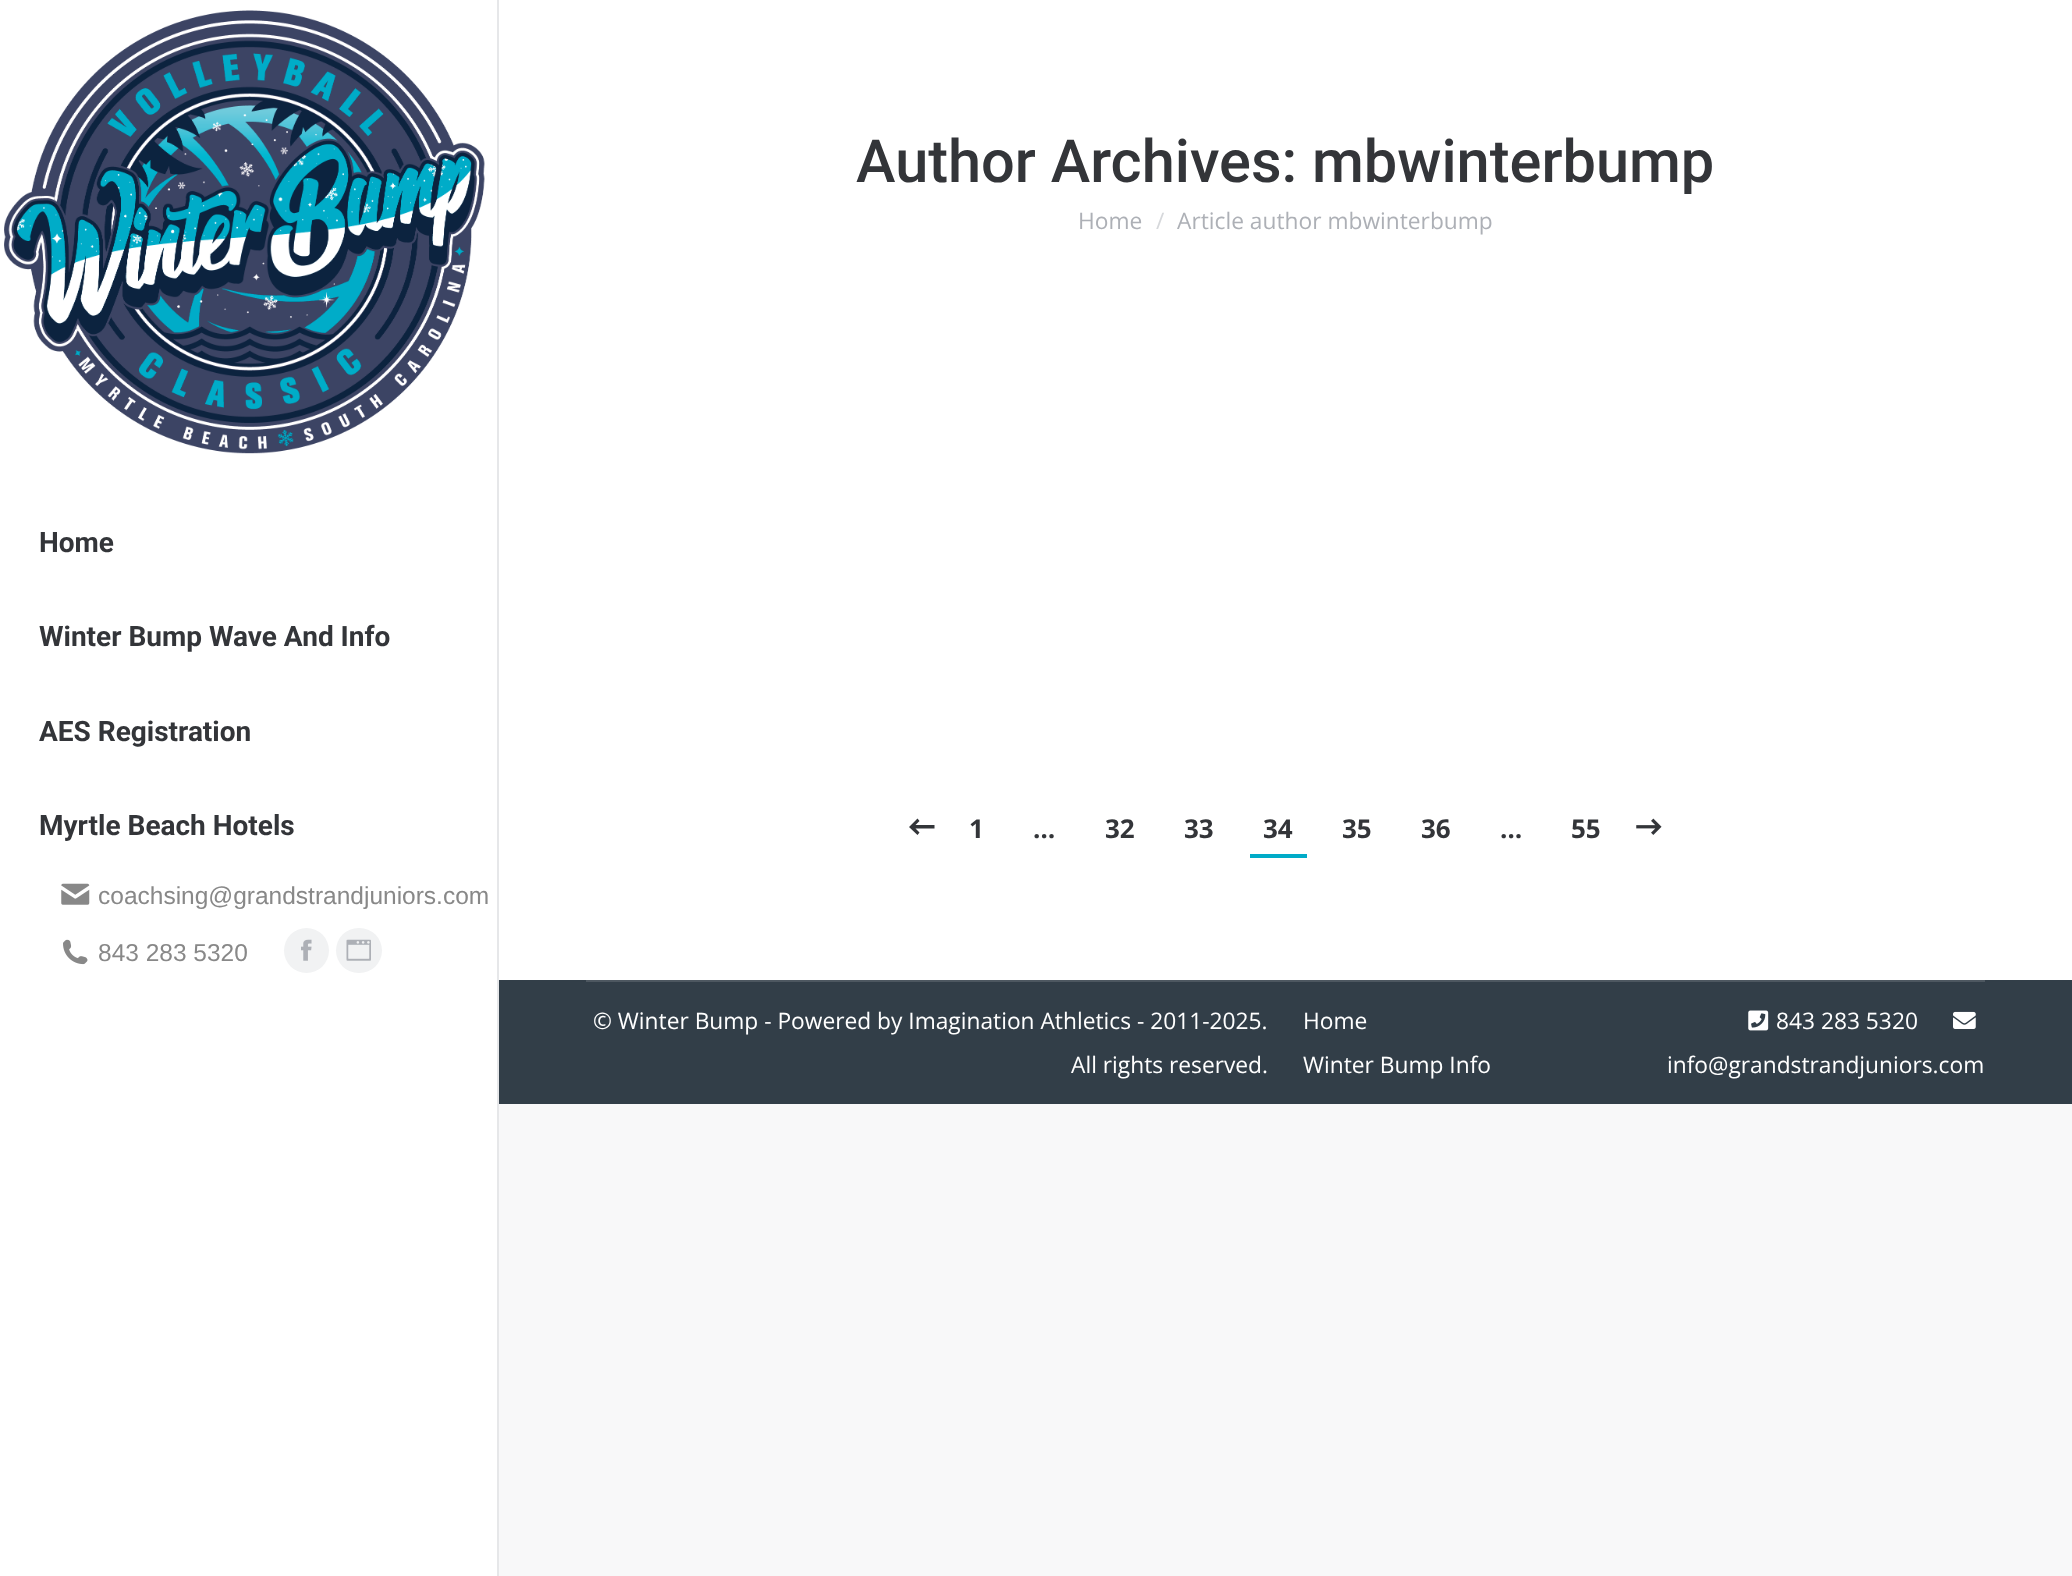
<?xml version="1.0" encoding="UTF-8"?>
<svg xmlns="http://www.w3.org/2000/svg" xmlns:xlink="http://www.w3.org/1999/xlink" width="2072" height="1576">
  <rect width="100%" height="100%" fill="#f8f8f9" />
  <rect x="499" width="1573" height="980" fill="#ffffff" />
  <rect width="497" height="1576" fill="#ffffff" />
  <rect x="497" width="2" height="1576" fill="#e6e7e9" />
  <image x="4" y="10" width="481" height="444" xlink:href="image1.png" />
  <image x="61" y="883" width="29" height="22" xlink:href="image2.png" />
  <image x="63" y="939" width="25" height="26" xlink:href="image3.png" />
  <circle cx="306.5" cy="950.5" r="22.5" fill="#f1f2f3" />
  <image x="301" y="939" width="11" height="22" xlink:href="image4.png" />
  <rect x="336" y="928" width="46" height="45" rx="22.5" fill="#f1f2f3" />
  <image x="346" y="939" width="25" height="22" xlink:href="image5.png" />
  <path d="M 934.5 825 h -19 l 4 -4 l -2 -2.5 l -8.5 8.5 l 8.5 8 l 2 -2.5 l -4 -4 h 19 z" fill="#333539" />
  <rect x="1250" y="854" width="57" height="4" fill="#00abc8" />
  <image x="1636" y="818" width="26" height="17" xlink:href="image6.png" />
  <rect x="499" y="980" width="1573" height="124" fill="#323e48" />
  <rect x="586" y="980" width="1399" height="2" fill="#4d5760" />
  <image x="1748" y="1010" width="21" height="21" xlink:href="image7.png" />
  <image x="1953" y="1011" width="23" height="18" xlink:href="image8.png" />
  <text x="856" y="182" style="font-family: Roboto; font-size: 59.5px; font-weight: 500; fill: #333539">Author Archives: mbwinterbump</text>
  <text x="1078" y="229" style="font-family: Open Sans; font-size: 22.75px; fill: #adb0b6">Home</text>
  <text x="1156" y="229" style="font-family: Open Sans; font-size: 22.75px; fill: #d6d8db">/</text>
  <text x="1177" y="229" style="font-family: Open Sans; font-size: 22.75px; fill: #adb0b6">Article author mbwinterbump</text>
  <text x="39" y="552" style="font-family: Roboto; font-size: 28px; font-weight: bold; fill: #333539">Home</text>
  <text x="39" y="646" style="font-family: Roboto; font-size: 28px; font-weight: bold; fill: #333539">Winter Bump Wave And Info</text>
  <text x="39" y="741" style="font-family: Roboto; font-size: 28px; font-weight: bold; fill: #333539">AES Registration</text>
  <text x="39" y="835" style="font-family: Roboto; font-size: 28px; font-weight: bold; fill: #333539">Myrtle Beach Hotels</text>
  <text x="98" y="904" style="font-family: Liberation Sans; font-size: 24.5px; fill: #888888">coachsing@grandstrandjuniors.com</text>
  <text x="98" y="961" style="font-family: Liberation Sans; font-size: 24.5px; fill: #888888">843 283 5320</text>
  <text x="969" y="838" style="font-family: Open Sans; font-size: 26px; font-weight: bold; fill: #333539">1</text>
  <text x="1033" y="838" style="font-family: Open Sans; font-size: 26px; font-weight: bold; fill: #333539">…</text>
  <text x="1105" y="838" style="font-family: Open Sans; font-size: 26px; font-weight: bold; fill: #333539">32</text>
  <text x="1184" y="838" style="font-family: Open Sans; font-size: 26px; font-weight: bold; fill: #333539">33</text>
  <text x="1263" y="838" style="font-family: Open Sans; font-size: 26px; font-weight: bold; fill: #333539">34</text>
  <text x="1342" y="838" style="font-family: Open Sans; font-size: 26px; font-weight: bold; fill: #333539">35</text>
  <text x="1421" y="838" style="font-family: Open Sans; font-size: 26px; font-weight: bold; fill: #333539">36</text>
  <text x="1500" y="838" style="font-family: Open Sans; font-size: 26px; font-weight: bold; fill: #333539">…</text>
  <text x="1571" y="838" style="font-family: Open Sans; font-size: 26px; font-weight: bold; fill: #333539">55</text>
  <text x="593" y="1029" style="font-family: Open Sans; font-size: 22.75px; fill: #ffffff">© Winter Bump - Powered by Imagination Athletics - 2011-2025.</text>
  <text x="1071" y="1073" style="font-family: Open Sans; font-size: 22.75px; fill: #ffffff">All rights reserved.</text>
  <text x="1303" y="1029" style="font-family: Open Sans; font-size: 22.75px; fill: #ffffff">Home</text>
  <text x="1303" y="1073" style="font-family: Open Sans; font-size: 22.75px; fill: #ffffff">Winter Bump Info</text>
  <text x="1776" y="1029" style="font-family: Open Sans; font-size: 22.75px; fill: #ffffff">843 283 5320</text>
  <text x="1667" y="1073" style="font-family: Open Sans; font-size: 22.75px; fill: #ffffff">info@grandstrandjuniors.com</text>
</svg>
